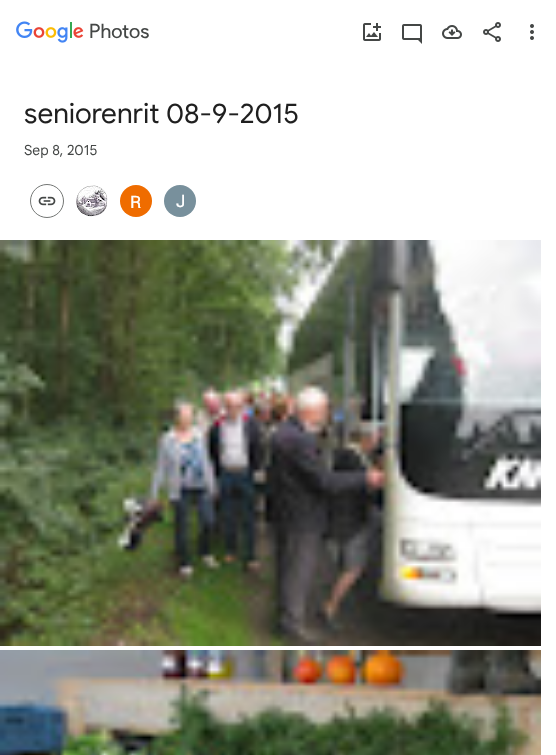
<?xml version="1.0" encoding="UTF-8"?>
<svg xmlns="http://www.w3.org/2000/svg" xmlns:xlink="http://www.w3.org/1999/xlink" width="556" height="755">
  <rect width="100%" height="100%" fill="#ffffff" />
  <image x="16" y="21" width="68" height="22" xlink:href="image1.png" />
  <image x="363" y="23" width="18" height="18" xlink:href="image2.png" />
  <image x="402" y="24" width="20" height="20" xlink:href="image3.png" />
  <image x="442" y="25" width="20" height="14" xlink:href="image4.png" />
  <image x="483" y="22" width="18" height="20" xlink:href="image5.png" />
  <image x="530" y="24" width="4" height="16" xlink:href="image6.png" />
  <circle cx="47" cy="201" r="16.5" fill="none" stroke="#747775" />
  <image x="38" y="196" width="18" height="10" xlink:href="image7.png" />
  <image x="76" y="185" width="32" height="32" xlink:href="image8.png" />
  <image x="120" y="185" width="32" height="32" xlink:href="image9.png" />
  <image x="164" y="185" width="32" height="32" xlink:href="image10.png" />
  <image x="0" y="240" width="541" height="406" xlink:href="image11.png" />
  <image x="0" y="650" width="541" height="105" xlink:href="image12.png" />
  <text x="89" y="38" style="font-family: Product Sans; font-size: 20px; fill: #444746">Photos</text>
  <text x="24" y="123" style="font-family: Google Sans; font-size: 28px; fill: #1f1f1f">seniorenrit 08-9-2015</text>
  <text x="24" y="155" style="font-family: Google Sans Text; font-size: 14px; fill: #444746">Sep 8, 2015</text>
</svg>
